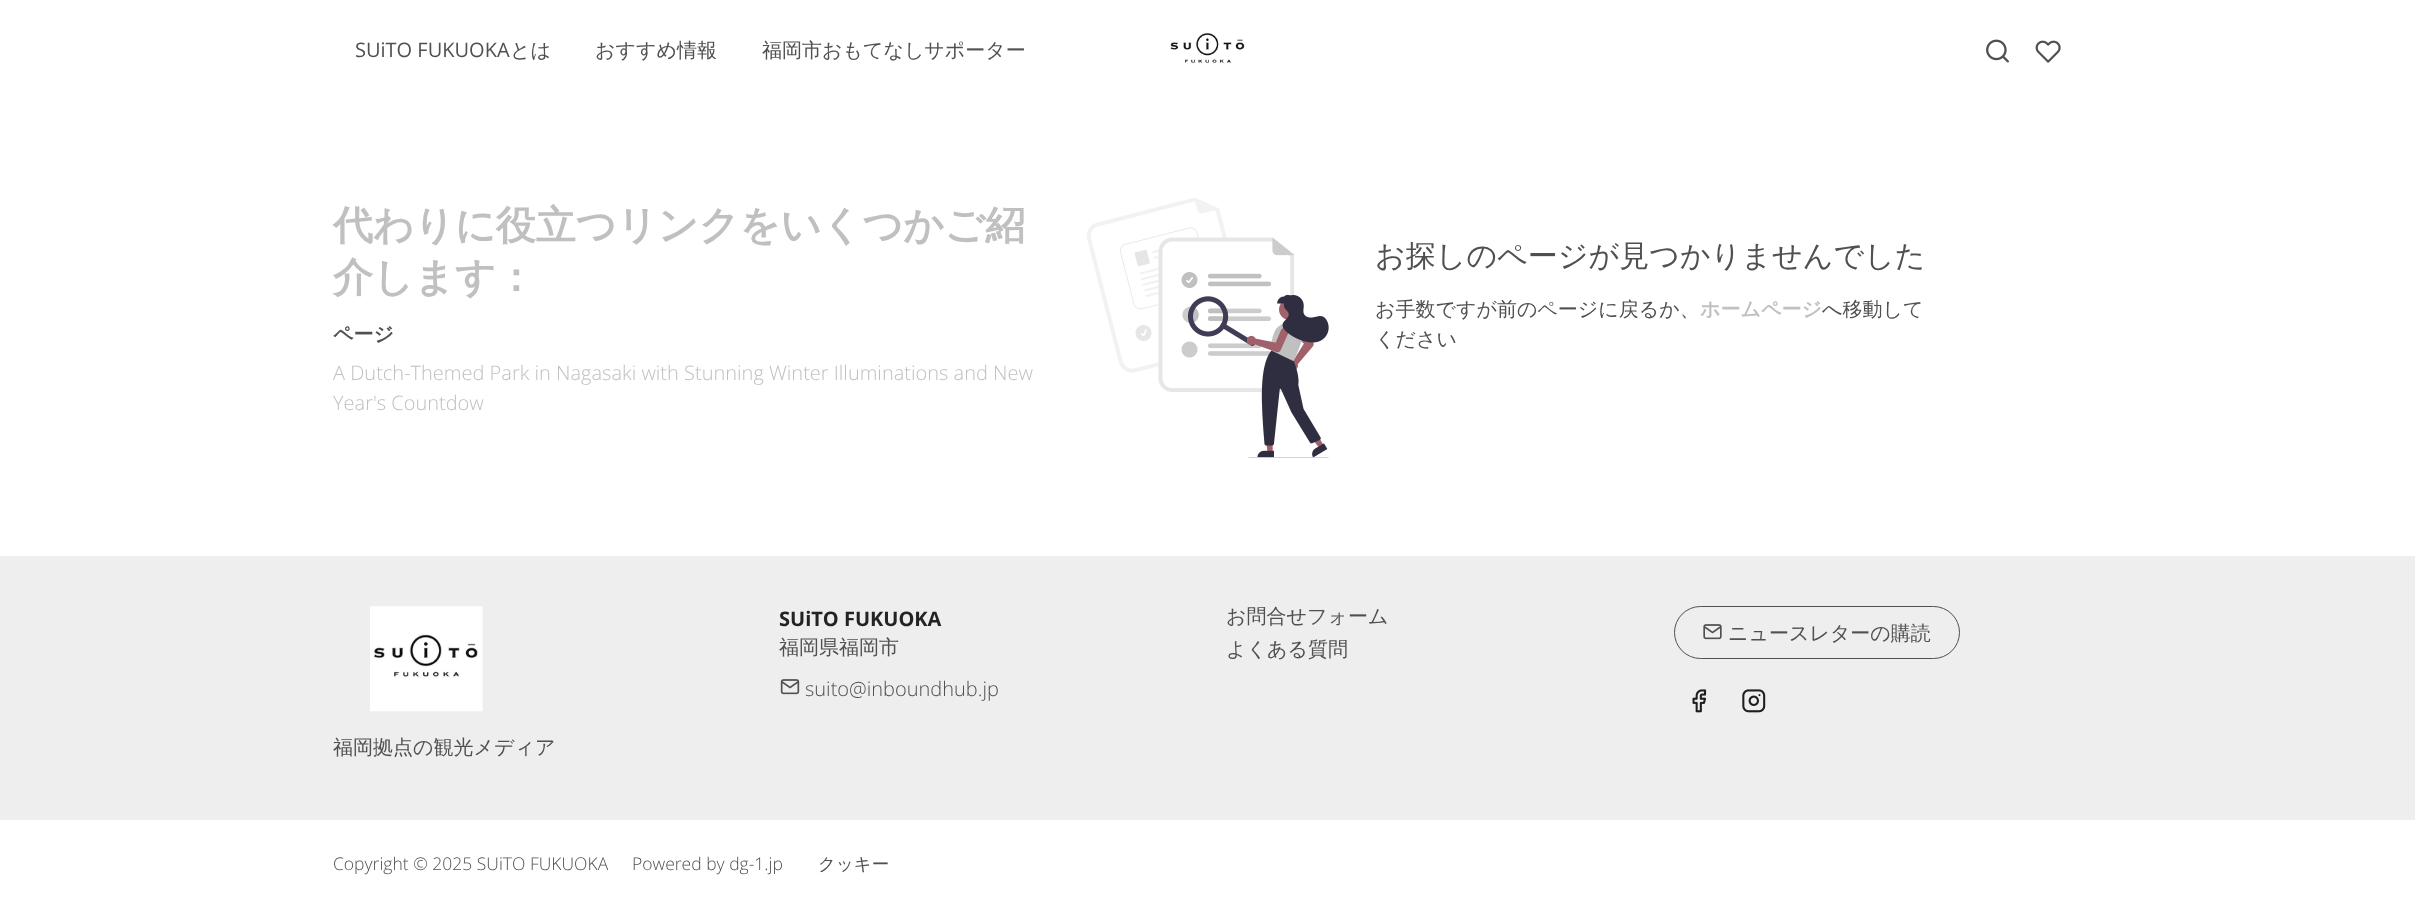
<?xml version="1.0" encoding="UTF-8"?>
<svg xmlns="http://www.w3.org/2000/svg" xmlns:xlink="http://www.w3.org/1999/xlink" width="2415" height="900">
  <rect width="100%" height="100%" fill="#ffffff" />
  <image x="1170" y="33" width="75" height="31" xlink:href="image1.png" />
  <image x="1986" y="39" width="23" height="24" xlink:href="image2.png" />
  <image x="2035" y="40" width="26" height="23" xlink:href="image3.png" />
  <image x="1087" y="198" width="242" height="260" xlink:href="image4.png" />
  <rect y="556" width="2415" height="264" fill="#eeeeee" />
  <image x="780" y="679" width="20" height="16" xlink:href="image5.png" />
  <rect x="1674.5" y="606.5" width="285" height="52" rx="26" fill="none" stroke="#505050" />
  <image x="1703" y="624" width="19" height="16" xlink:href="image6.png" />
  <image x="1692" y="689" width="15" height="24" xlink:href="image7.png" />
  <image x="1742" y="689" width="24" height="24" xlink:href="image8.png" />
  <image x="370" y="606" width="113" height="106" xlink:href="image9.png" />
  <text x="355" y="57" style="font-family: Open Sans; font-size: 20px; fill: #505050">SUiTO FUKUOKA</text>
  <text x="510" y="57" style="font-family: WenQuanYi Zen Hei; font-size: 20px; font-weight: 500; fill: #505050">とは</text>
  <text x="595" y="57" style="font-family: WenQuanYi Zen Hei; font-size: 20px; font-weight: 500; fill: #505050">おすすめ情報</text>
  <text x="762" y="57" style="font-family: WenQuanYi Zen Hei; font-size: 20px; font-weight: 500; fill: #505050">福岡市おもてなしサポーター</text>
  <text x="333" y="239" style="font-family: WenQuanYi Zen Hei; font-size: 40px; font-weight: bold; fill: #c0c0c0">代わりに役立つリンクをいくつかご紹</text>
  <text x="333" y="291" style="font-family: WenQuanYi Zen Hei; font-size: 40px; font-weight: bold; fill: #c0c0c0">介します：</text>
  <text x="333" y="341" style="font-family: WenQuanYi Zen Hei; font-size: 20px; font-weight: bold; fill: #505050">ページ</text>
  <text x="333" y="380" style="font-family: Open Sans; font-size: 20px; font-weight: 300; fill: #c0c0c0">A Dutch-Themed Park in Nagasaki with Stunning Winter Illuminations and New</text>
  <text x="333" y="410" style="font-family: Open Sans; font-size: 20px; font-weight: 300; fill: #c0c0c0">Year's Countdow</text>
  <text x="1375" y="266" style="font-family: WenQuanYi Zen Hei; font-size: 30px; font-weight: 500; fill: #505050">お探しのページが見つかりませんでした</text>
  <text x="1375" y="316" style="font-family: WenQuanYi Zen Hei; font-size: 20px; font-weight: 500; fill: #505050">お手数ですが前のページに戻るか、</text>
  <text x="1700" y="316" style="font-family: WenQuanYi Zen Hei; font-size: 20px; font-weight: bold; fill: #c0c0c0">ホームページ</text>
  <text x="1822" y="316" style="font-family: WenQuanYi Zen Hei; font-size: 20px; font-weight: 500; fill: #505050">へ移動して</text>
  <text x="1375" y="346" style="font-family: WenQuanYi Zen Hei; font-size: 20px; font-weight: 500; fill: #505050">ください</text>
  <text x="779" y="626" style="font-family: Open Sans; font-size: 20px; font-weight: bold; fill: #232323">SUiTO FUKUOKA</text>
  <text x="779" y="654" style="font-family: WenQuanYi Zen Hei; font-size: 20px; font-weight: 500; fill: #505050">福岡県福岡市</text>
  <text x="805" y="696" style="font-family: Open Sans; font-size: 20px; font-weight: 300; fill: #505050">suito@inboundhub.jp</text>
  <text x="1226" y="623" style="font-family: WenQuanYi Zen Hei; font-size: 20px; font-weight: 500; fill: #505050">お問合せフォーム</text>
  <text x="1226" y="656" style="font-family: WenQuanYi Zen Hei; font-size: 20px; font-weight: 500; fill: #505050">よくある質問</text>
  <text x="1728" y="640" style="font-family: WenQuanYi Zen Hei; font-size: 20px; font-weight: 500; fill: #505050">ニュースレターの購読</text>
  <text x="333" y="754" style="font-family: WenQuanYi Zen Hei; font-size: 20px; font-weight: 500; fill: #505050">福岡拠点の観光メディア</text>
  <text x="333" y="870" style="font-family: Open Sans; font-size: 17.5px; font-weight: 300; fill: #505050">Copyright © 2025 SUiTO FUKUOKA</text>
  <text x="632" y="870" style="font-family: Open Sans; font-size: 17.5px; font-weight: 300; fill: #505050">Powered by dg-1.jp</text>
  <text x="818" y="870" style="font-family: WenQuanYi Zen Hei; font-size: 17.5px; font-weight: 500; fill: #505050">クッキー</text>
</svg>
